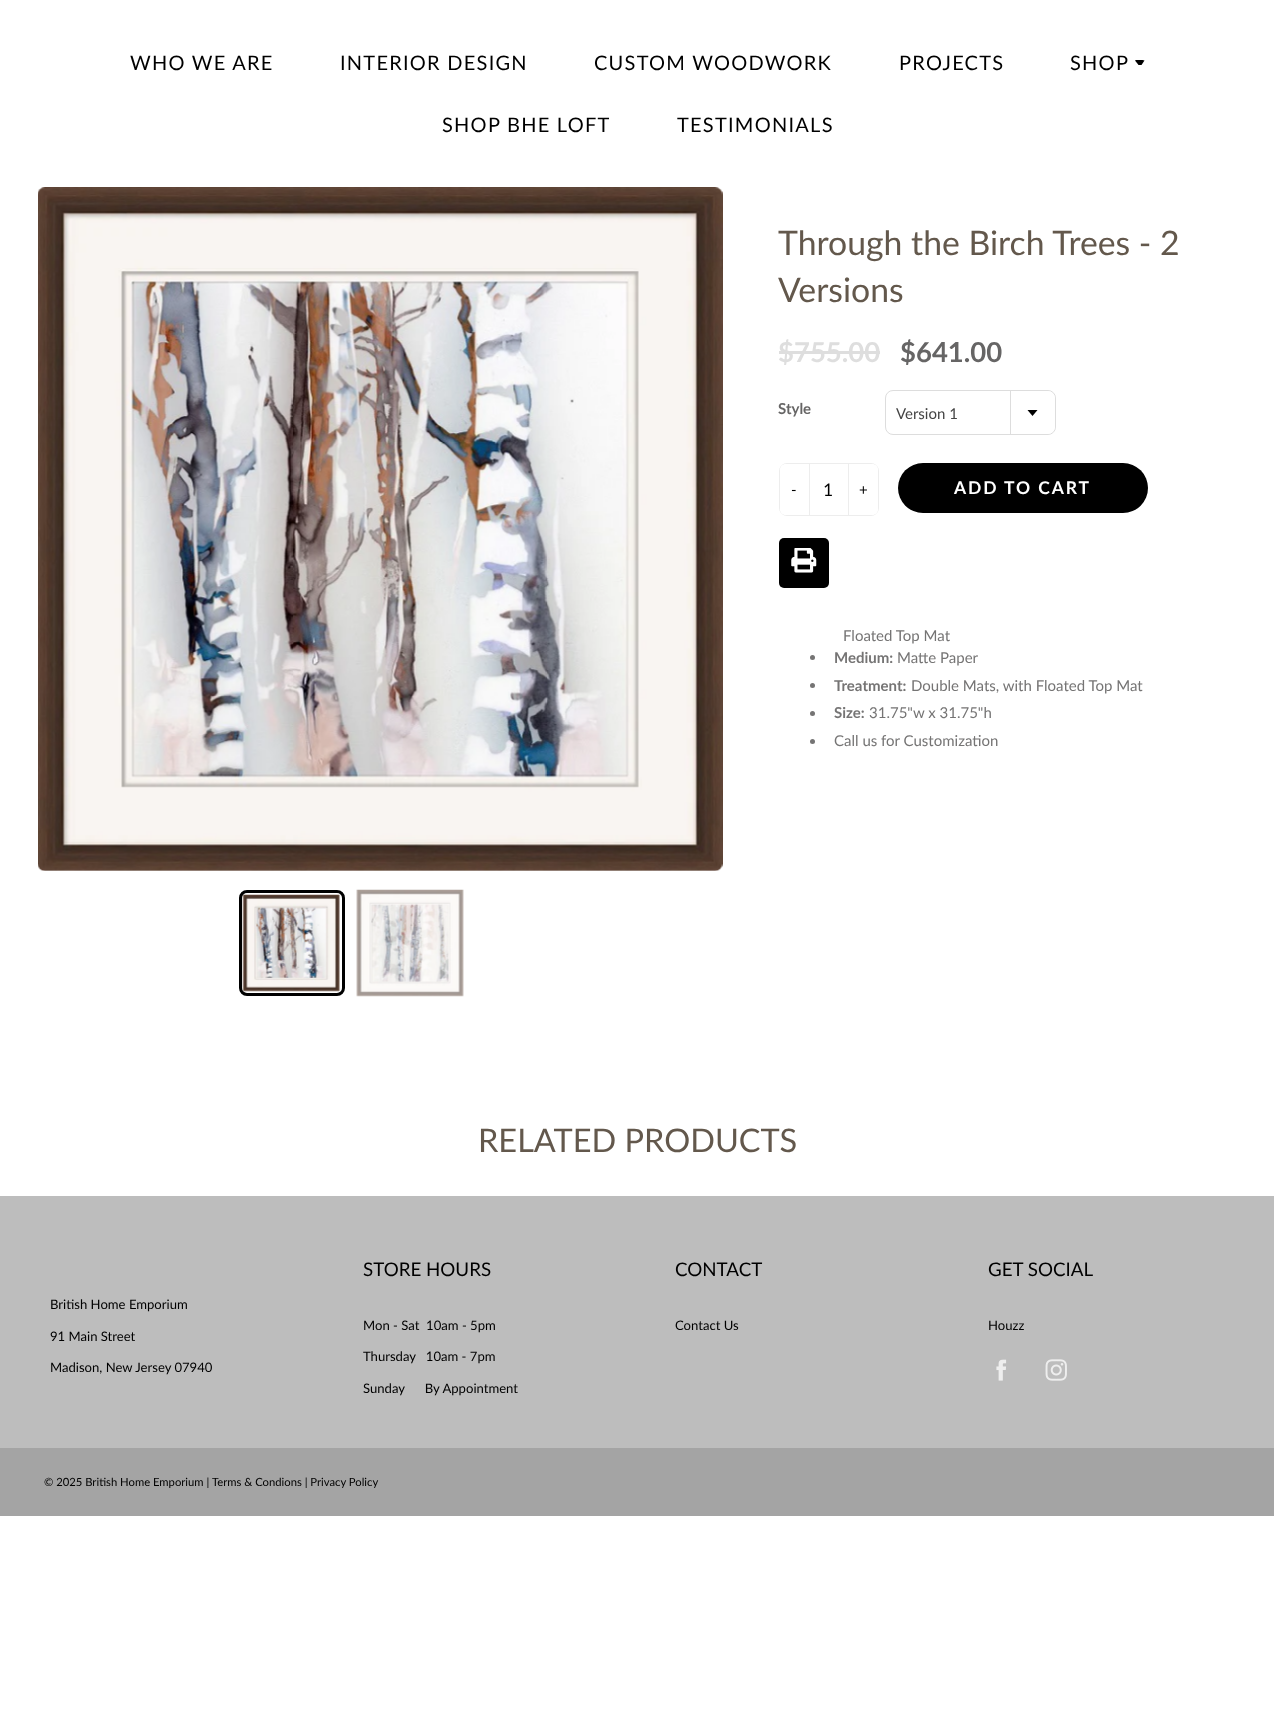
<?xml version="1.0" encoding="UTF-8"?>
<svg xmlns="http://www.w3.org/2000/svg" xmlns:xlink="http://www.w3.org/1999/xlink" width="1274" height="1715">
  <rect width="100%" height="100%" fill="#ffffff" />
  <path d="M 1136 60 l -1 0.5 l 3.5 4.5 h 3 l 3 -4.5 l -2 -0.5 z" fill="#000000" />
  <image x="38" y="187" width="685" height="684" xlink:href="image1.png" />
  <rect x="240.5" y="891.5" width="103" height="103" rx="6.5" fill="none" stroke="#000000" stroke-width="3" />
  <image x="242" y="894" width="98" height="98" xlink:href="image2.png" />
  <image x="356" y="889" width="108" height="108" xlink:href="image3.png" />
  <rect x="779" y="351" width="101" height="3" fill="#dedede" />
  <rect x="885.5" y="390.5" width="170" height="44" rx="7.5" fill="none" stroke="#dddddd" />
  <path d="M 1010 391 h 37 c 4.5 0 8 3.5 8 8 v 27 c 0 4.5 -3.5 8 -8 8 h -37 z" fill="#ffffff" />
  <rect x="1010" y="391" width="1" height="43" fill="#dddddd" />
  <path d="M 1027.5 410 h 10 l -5 6 z" fill="#000000" />
  <rect x="779.5" y="463.5" width="99" height="52" rx="7.5" fill="none" stroke="#ededed" />
  <path d="M 786 464 h 23 v 51 h -23 c -3.5 0 -6 -2.5 -6 -6 v -39 c 0 -3.5 2.5 -6 6 -6 z" fill="#ffffff" />
  <rect x="848" y="464" width="1" height="51" fill="#ededed" />
  <rect x="809" y="464" width="1" height="51" fill="#ededed" />
  <path d="M 849 464 h 23 c 3.5 0 6 2.5 6 6 v 39 c 0 3.5 -2.5 6 -6 6 h -23 z" fill="#ffffff" />
  <rect x="898" y="463" width="250" height="50" rx="25" fill="#000000" />
  <rect x="779" y="538" width="50" height="50" rx="5" fill="#000000" />
  <image x="791" y="548" width="26" height="25" xlink:href="image4.png" />
  <circle cx="812.5" cy="657.5" r="2.5" fill="#757474" />
  <circle cx="812.5" cy="685.5" r="2.5" fill="#757474" />
  <circle cx="812.5" cy="713.5" r="2.5" fill="#757474" />
  <circle cx="812.5" cy="741.5" r="2.5" fill="#757474" />
  <rect y="1196" width="1274" height="252" fill="#bdbdbd" />
  <image x="996" y="1359" width="11" height="22" xlink:href="image5.png" />
  <image x="1045" y="1359" width="22" height="22" xlink:href="image6.png" />
  <rect y="1448" width="1274" height="68" fill="#a4a4a4" />
  <text x="130" y="70" style="font-family: Lato; font-size: 20px; letter-spacing: 1.25px; fill: #000000">WHO WE ARE</text>
  <text x="340" y="70" style="font-family: Lato; font-size: 20px; letter-spacing: 1.25px; fill: #000000">INTERIOR DESIGN</text>
  <text x="594" y="70" style="font-family: Lato; font-size: 20px; letter-spacing: 1.25px; fill: #000000">CUSTOM WOODWORK</text>
  <text x="899" y="70" style="font-family: Lato; font-size: 20px; letter-spacing: 1.25px; fill: #000000">PROJECTS</text>
  <text x="1070" y="70" style="font-family: Lato; font-size: 20px; letter-spacing: 1.25px; fill: #000000">SHOP</text>
  <text x="442" y="132" style="font-family: Lato; font-size: 20px; letter-spacing: 1.25px; fill: #000000">SHOP BHE LOFT</text>
  <text x="677" y="132" style="font-family: Lato; font-size: 20px; letter-spacing: 1.25px; fill: #000000">TESTIMONIALS</text>
  <text x="778" y="255" style="font-family: Lato; font-size: 33.75px; fill: #63584c">Through the Birch Trees - 2</text>
  <text x="778" y="302" style="font-family: Lato; font-size: 33.75px; fill: #63584c">Versions</text>
  <text x="778" y="362" style="font-family: Lato; font-size: 27.5px; font-weight: bold; fill: #dedede">$755.00</text>
  <text x="900" y="362" style="font-family: Lato; font-size: 27.5px; font-weight: bold; fill: #666565">$641.00</text>
  <text x="778" y="414" style="font-family: Lato; font-size: 15px; font-weight: bold; fill: #666565">Style</text>
  <text x="896" y="419" style="font-family: Lato; font-size: 15px; fill: #444444">Version 1</text>
  <text x="791" y="495" style="font-family: Lato; font-size: 15px; fill: #000000">-</text>
  <text x="823" y="496" style="font-family: Lato; font-size: 17.5px; fill: #000000">1</text>
  <text x="859" y="495" style="font-family: Lato; font-size: 15px; fill: #000000">+</text>
  <text x="954" y="494" style="font-family: Lato; font-size: 17.5px; font-weight: bold; letter-spacing: 1.9px; fill: #ffffff">ADD TO CART</text>
  <text x="843" y="641" style="font-family: Lato; font-size: 15px; fill: #757474">Floated Top Mat</text>
  <text x="834" y="663" style="font-family: Lato; font-size: 15px; font-weight: bold; fill: #757474">Medium:</text>
  <text x="897" y="663" style="font-family: Lato; font-size: 15px; fill: #757474">Matte Paper</text>
  <text x="834" y="691" style="font-family: Lato; font-size: 15px; font-weight: bold; fill: #757474">Treatment:</text>
  <text x="911" y="691" style="font-family: Lato; font-size: 15px; fill: #757474">Double Mats, with Floated Top Mat</text>
  <text x="834" y="718" style="font-family: Lato; font-size: 15px; font-weight: bold; fill: #757474">Size:</text>
  <text x="869" y="718" style="font-family: Lato; font-size: 15px; fill: #757474">31.75"w x 31.75"h</text>
  <text x="834" y="746" style="font-family: Lato; font-size: 15px; fill: #757474">Call us for Customization</text>
  <text x="478" y="1152" style="font-family: Lato; font-size: 32.5px; fill: #63584c">RELATED PRODUCTS</text>
  <text x="50" y="1309" style="font-family: Lato; font-size: 13.1px; fill: #000000">British Home Emporium</text>
  <text x="50" y="1341" style="font-family: Lato; font-size: 13.1px; fill: #000000">91 Main Street</text>
  <text x="50" y="1372" style="font-family: Lato; font-size: 13.1px; fill: #000000">Madison, New Jersey 07940</text>
  <text x="363" y="1276" style="font-family: Lato; font-size: 18.75px; fill: #000000">STORE HOURS</text>
  <text x="363" y="1330" style="font-family: Lato; font-size: 13.1px; fill: #000000" xml:space="preserve">Mon - Sat  10am - 5pm</text>
  <text x="363" y="1361" style="font-family: Lato; font-size: 13.1px; fill: #000000" xml:space="preserve">Thursday   10am - 7pm</text>
  <text x="363" y="1393" style="font-family: Lato; font-size: 13.1px; fill: #000000" xml:space="preserve">Sunday      By Appointment</text>
  <text x="675" y="1276" style="font-family: Lato; font-size: 18.75px; fill: #000000">CONTACT</text>
  <text x="675" y="1330" style="font-family: Lato; font-size: 13.1px; fill: #000000">Contact Us</text>
  <text x="988" y="1276" style="font-family: Lato; font-size: 18.75px; fill: #000000">GET SOCIAL</text>
  <text x="988" y="1330" style="font-family: Lato; font-size: 13.1px; fill: #000000">Houzz</text>
  <text x="44" y="1486" style="font-family: Lato; font-size: 11.25px; fill: #000000">© 2025 British Home Emporium |</text>
  <text x="212" y="1486" style="font-family: Lato; font-size: 11.25px; fill: #000000">Terms &amp; Condions | Privacy Policy</text>
</svg>
